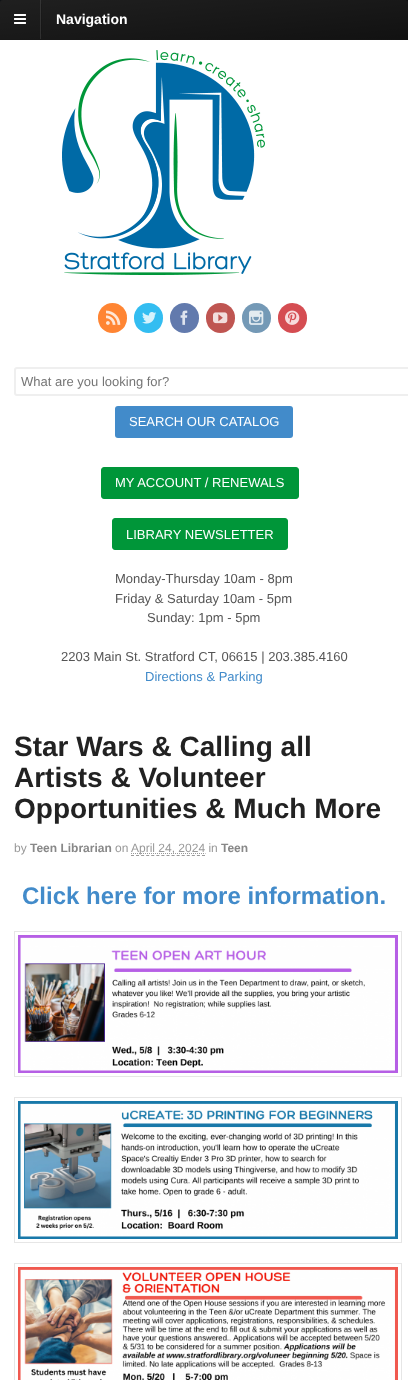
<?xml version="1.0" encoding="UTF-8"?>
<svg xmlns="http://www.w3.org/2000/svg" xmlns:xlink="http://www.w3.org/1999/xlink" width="408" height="1380">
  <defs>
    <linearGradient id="g1" gradientUnits="userSpaceOnUse" x1="200" y1="-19" x2="208" y2="58"><stop offset="0" stop-color="#000000" stop-opacity="0.65" /><stop offset="1" stop-color="#000000" stop-opacity="0.8" /></linearGradient>
    <linearGradient id="g2" gradientUnits="userSpaceOnUse" x1="200" y1="20" x2="208" y2="97"><stop offset="0" stop-color="#1f1f1f" /><stop offset="1" stop-color="#121212" /></linearGradient>
  </defs>
  <rect width="100%" height="100%" fill="#7f92ad" />
  <rect width="408" height="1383" rx="3" fill="#ffffff" />
  <rect width="408" height="39" fill="#000000" fill-opacity="0.65" />
  <rect width="408" height="39" fill="url(#g1)" />
  <rect y="39" width="408" height="1" fill="url(#g2)" />
  <rect y="39" width="408" height="1" fill="#000000" fill-opacity="0.2" />
  <rect x="40" width="1" height="39" fill="#ffffff" fill-opacity="0.1" />
  <image x="14" y="14" width="12" height="10" xlink:href="image1.png" />
  <rect x="41" y="4" width="1" height="30" fill="#000000" fill-opacity="0.1" />
  <image x="62" y="50" width="203" height="225" xlink:href="image2.png" />
  <rect x="98" y="303" width="29" height="30" rx="14.5" fill="#ff8533" />
  <image x="106" y="310" width="15" height="15" xlink:href="image3.png" />
  <rect x="134" y="303" width="29" height="30" rx="14.5" fill="#33bdf1" />
  <image x="142" y="312" width="15" height="12" xlink:href="image4.png" />
  <rect x="170" y="303" width="29" height="30" rx="14.5" fill="#627aad" />
  <image x="180" y="310" width="8" height="15" xlink:href="image5.png" />
  <rect x="206" y="303" width="29" height="30" rx="14.5" fill="#bf5551" />
  <image x="213" y="312" width="15" height="12" xlink:href="image6.png" />
  <rect x="242" y="303" width="29" height="30" rx="14.5" fill="#7499b6" />
  <image x="249" y="310" width="15" height="15" xlink:href="image7.png" />
  <rect x="278" y="303" width="29" height="30" rx="14.5" fill="#d54d52" />
  <image x="285" y="310" width="15" height="15" xlink:href="image8.png" />
  <rect x="15" y="368" width="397" height="27" rx="2" fill="none" stroke="#efefef" stroke-width="2" />
  <rect x="115" y="406" width="178" height="32" rx="3" fill="#428bca" />
  <rect x="101.5" y="467.5" width="197" height="31" rx="2.5" fill="#009639" stroke="#009639" />
  <rect x="112.5" y="518.5" width="175" height="31" rx="2.5" fill="#009639" stroke="#009639" />
  <path d="M 131 855.5 h 74" fill="none" stroke="#999999" stroke-dasharray="3 2.07" />
  <path d="M 131 853.5 h 74.5" fill="none" stroke="#999999" stroke-dasharray="1 1" />
  <rect x="14.5" y="931.5" width="387" height="145" fill="none" stroke="#e6e6e6" />
  <image x="18" y="935" width="380" height="138" xlink:href="image9.png" />
  <rect x="14.5" y="1097.5" width="387" height="145" fill="none" stroke="#e6e6e6" />
  <image x="18" y="1101" width="380" height="138" xlink:href="image10.png" />
  <rect x="14.5" y="1263.5" width="387" height="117" fill="none" stroke="#e6e6e6" />
  <image x="18" y="1267" width="380" height="113" xlink:href="image11.png" />
  <text x="56" y="24" style="font-family: Liberation Sans; font-size: 14px; font-weight: bold; fill: #ffffff">Navigation</text>
  <text x="21" y="386" style="font-family: Liberation Sans; font-size: 13px; fill: #757575">What are you looking for?</text>
  <text x="129" y="426" style="font-family: Liberation Sans; font-size: 13px; fill: #ffffff">SEARCH OUR CATALOG</text>
  <text x="115" y="487" style="font-family: Liberation Sans; font-size: 13px; fill: #ffffff">MY ACCOUNT / RENEWALS</text>
  <text x="126" y="539" style="font-family: Liberation Sans; font-size: 13px; fill: #ffffff">LIBRARY NEWSLETTER</text>
  <text x="115" y="583" style="font-family: Liberation Sans; font-size: 13px; fill: #555555">Monday-Thursday 10am - 8pm</text>
  <text x="115" y="603" style="font-family: Liberation Sans; font-size: 13px; fill: #555555">Friday &amp; Saturday 10am - 5pm</text>
  <text x="147" y="622" style="font-family: Liberation Sans; font-size: 13px; fill: #555555">Sunday: 1pm - 5pm</text>
  <text x="61" y="661" style="font-family: Liberation Sans; font-size: 13px; fill: #555555">2203 Main St. Stratford CT, 06615 | 203.385.4160</text>
  <text x="145" y="681" style="font-family: Liberation Sans; font-size: 13px; fill: #428bca">Directions &amp; Parking</text>
  <text x="14" y="756" style="font-family: Liberation Sans; font-size: 28px; font-weight: bold; fill: #222222">Star Wars &amp; Calling all</text>
  <text x="14" y="787" style="font-family: Liberation Sans; font-size: 28px; font-weight: bold; fill: #222222">Artists &amp; Volunteer</text>
  <text x="14" y="818" style="font-family: Liberation Sans; font-size: 28px; font-weight: bold; fill: #222222">Opportunities &amp; Much More</text>
  <text x="14" y="852" style="font-family: Liberation Sans; font-size: 12px; fill: #999999">by</text>
  <text x="30" y="852" style="font-family: Liberation Sans; font-size: 12px; font-weight: bold; fill: #888888">Teen Librarian</text>
  <text x="115" y="852" style="font-family: Liberation Sans; font-size: 12px; fill: #999999">on</text>
  <text x="131" y="852" style="font-family: Liberation Sans; font-size: 12px; fill: #999999">April 24, 2024 in</text>
  <text x="221" y="852" style="font-family: Liberation Sans; font-size: 12px; font-weight: bold; fill: #888888">Teen</text>
  <text x="22" y="904" style="font-family: Liberation Sans; font-size: 24px; font-weight: bold; fill: #428bca">Click here for more information.</text>
</svg>
